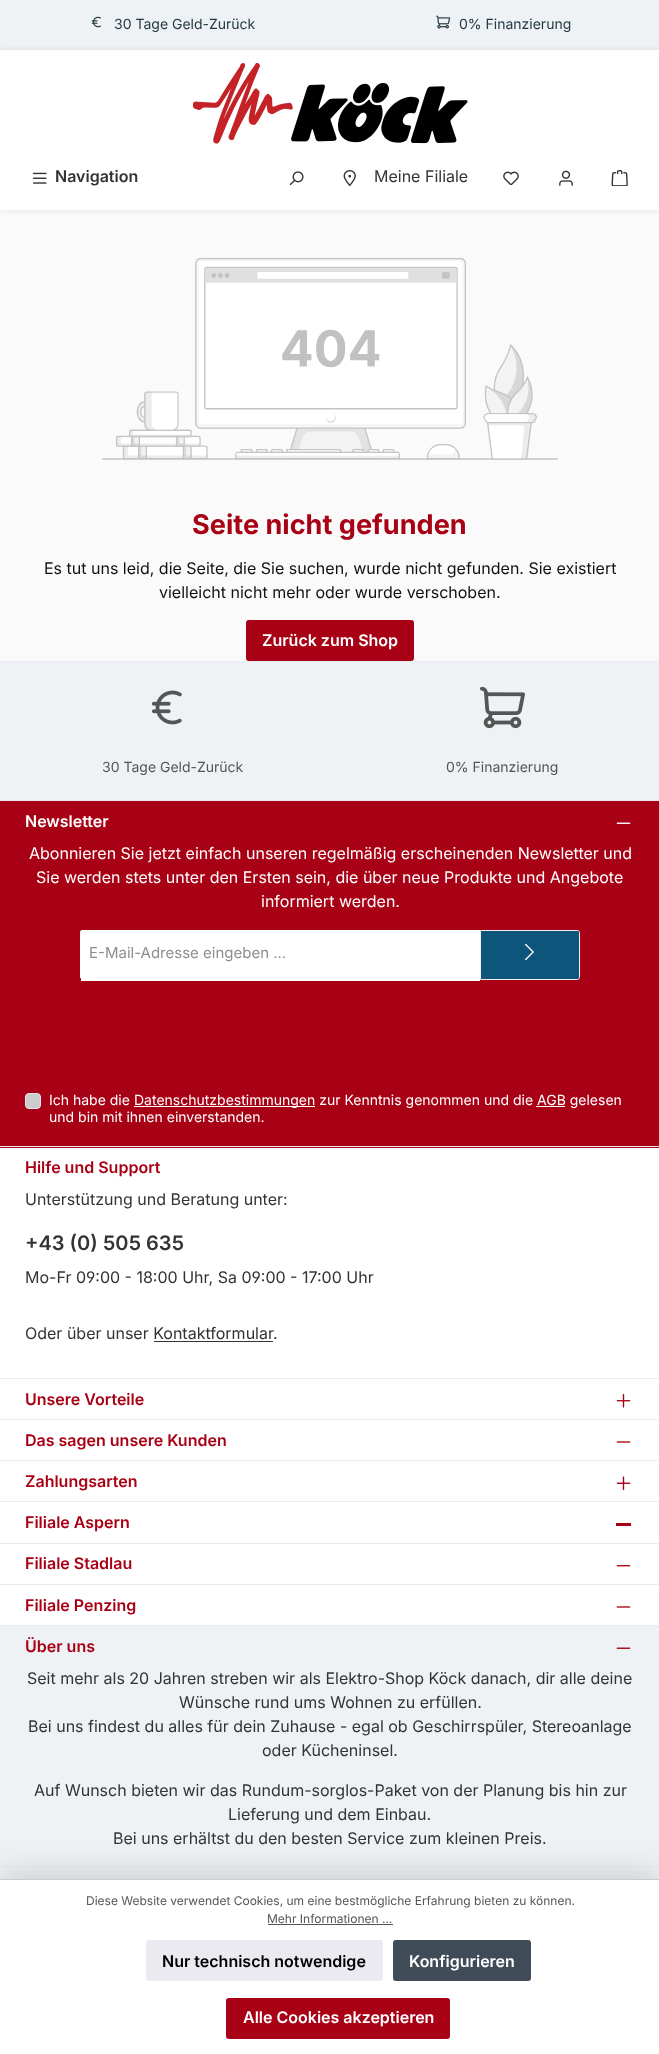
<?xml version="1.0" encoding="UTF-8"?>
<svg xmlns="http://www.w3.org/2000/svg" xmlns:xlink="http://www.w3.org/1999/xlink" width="659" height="2054">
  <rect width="100%" height="100%" fill="#fafafa" />
  <rect width="659" height="50" fill="#eef2f5" />
  <image x="91" y="16" width="10" height="12" xlink:href="image1.png" />
  <image x="436" y="15" width="15" height="14" xlink:href="image2.png" />
  <rect y="50" width="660" height="160" fill="#000000" fill-opacity="0.1" filter="blur(3px)" />
  <rect y="50" width="659" height="160" fill="#ffffff" />
  <image x="193" y="63" width="275" height="81" xlink:href="image3.png" />
  <image x="32" y="172" width="15" height="12" xlink:href="image4.png" />
  <image x="289" y="171" width="15" height="15" xlink:href="image5.png" />
  <image x="343" y="170" width="13" height="16" xlink:href="image6.png" />
  <image x="503" y="171" width="16" height="15" xlink:href="image7.png" />
  <image x="559" y="170" width="14" height="16" xlink:href="image8.png" />
  <image x="611" y="170" width="17" height="16" xlink:href="image9.png" />
  <image x="102" y="258" width="457" height="202" xlink:href="image10.png" />
  <rect x="246.5" y="620.5" width="167" height="40" rx="2" fill="#a80014" stroke="#a80014" />
  <rect y="662" width="659" height="138" fill="#eef2f5" />
  <rect y="661" width="659" height="1" fill="#e5ebf0" />
  <image x="151" y="690" width="31" height="35" xlink:href="image11.png" />
  <image x="480" y="686" width="45" height="43" xlink:href="image12.png" />
  <rect y="1148" width="659" height="477" fill="#ffffff" />
  <rect y="801" width="659" height="347" fill="#a80014" />
  <rect y="800" width="659" height="1" fill="#eaeaf0" />
  <rect y="1146" width="659" height="1" fill="#eaeaf0" />
  <image x="616" y="822" width="15" height="2" xlink:href="image13.png" />
  <path d="M 82 930 h 398 v 48 h -400 v -46 c 0 -1 1 -2 2 -2 z" fill="#ffffff" />
  <rect x="81" y="978" width="399" height="3" fill="#ffffff" />
  <path d="M 480.5 930.5 h 97 c 1 0 2 1 2 2 v 45 c 0 1 -1 2 -2 2 h -97 z" fill="#0e557b" stroke="#eeeeee" />
  <image x="525" y="944" width="9" height="16" xlink:href="image14.png" />
  <rect x="25.5" y="1093.5" width="15" height="15" rx="3.5" fill="#cccccc" stroke="#eaeaf0" />
  <rect x="134" y="1106" width="181" height="1" fill="#ffffff" />
  <rect x="536" y="1106" width="29" height="1" fill="#ffffff" />
  <rect y="1378" width="659" height="1" fill="#eaeaf0" />
  <rect x="154" y="1341" width="119" height="1" fill="#333333" />
  <rect y="1419" width="659" height="1" fill="#eaeaf0" />
  <image x="616" y="1393" width="15" height="15" xlink:href="image15.png" />
  <rect y="1460" width="659" height="1" fill="#eaeaf0" />
  <image x="616" y="1441" width="15" height="2" xlink:href="image16.png" />
  <rect y="1501" width="659" height="1" fill="#eaeaf0" />
  <image x="616" y="1476" width="15" height="15" xlink:href="image17.png" />
  <rect y="1543" width="659" height="1" fill="#eaeaf0" />
  <rect x="616" y="1523" width="15" height="3" fill="#a80014" />
  <rect y="1584" width="659" height="1" fill="#eaeaf0" />
  <image x="616" y="1565" width="15" height="2" xlink:href="image18.png" />
  <rect y="1625" width="659" height="1" fill="#eaeaf0" />
  <image x="616" y="1606" width="15" height="2" xlink:href="image16.png" />
  <rect y="1626" width="659" height="253" fill="#eef2f5" />
  <rect y="1866" width="659" height="1" fill="#eaeaf0" />
  <image x="616" y="1647" width="15" height="2" xlink:href="image19.png" />
  <rect y="1879" width="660" height="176" fill="#000000" fill-opacity="0.2" filter="blur(19px)" />
  <rect y="1880" width="659" height="174" fill="#ffffff" />
  <rect y="1879" width="659" height="1" fill="#cccccc" />
  <rect x="268" y="1924" width="125" height="1" fill="#555555" />
  <rect x="146.5" y="1940.5" width="236" height="40" rx="2" fill="#eaeaf0" stroke="#eaeaf0" />
  <rect x="393.5" y="1940.5" width="137" height="40" rx="2" fill="#404b58" stroke="#404b58" />
  <rect x="226.5" y="1998.5" width="223" height="40" rx="2" fill="#a80014" stroke="#a80014" />
  <text x="114" y="29" style="font-family: Inter; font-size: 14px; fill: #263842">30 Tage Geld-Zurück</text>
  <text x="459" y="29" style="font-family: Inter; font-size: 14px; fill: #263842">0% Finanzierung</text>
  <text x="55" y="182" style="font-family: Inter; font-size: 16px; font-weight: 600; fill: #333333">Navigation</text>
  <text x="374" y="182" style="font-family: Inter; font-size: 16px; fill: #333333">Meine Filiale</text>
  <text x="192" y="534" style="font-family: Inter; font-size: 27.1px; font-weight: bold; fill: #a80014">Seite nicht gefunden</text>
  <text x="44" y="574" style="font-family: Inter; font-size: 16px; fill: #111111">Es tut uns leid, die Seite, die Sie suchen, wurde nicht gefunden. Sie existiert</text>
  <text x="159" y="598" style="font-family: Inter; font-size: 16px; fill: #111111">vielleicht nicht mehr oder wurde verschoben.</text>
  <text x="262" y="646" style="font-family: Inter; font-size: 16px; font-weight: 600; fill: #ffffff">Zurück zum Shop</text>
  <text x="102" y="772" style="font-family: Inter; font-size: 14px; fill: #555555">30 Tage Geld-Zurück</text>
  <text x="446" y="772" style="font-family: Inter; font-size: 14px; fill: #555555">0% Finanzierung</text>
  <text x="25" y="827" style="font-family: Inter; font-size: 16px; font-weight: 600; fill: #ffffff">Newsletter</text>
  <text x="29" y="859" style="font-family: Inter; font-size: 16px; fill: #ffffff">Abonnieren Sie jetzt einfach unseren regelmäßig erscheinenden Newsletter und</text>
  <text x="36" y="883" style="font-family: Inter; font-size: 16px; fill: #ffffff">Sie werden stets unter den Ersten sein, die über neue Produkte und Angebote</text>
  <text x="261" y="907" style="font-family: Inter; font-size: 16px; fill: #ffffff">informiert werden.</text>
  <text x="89" y="958" style="font-family: Inter; font-size: 15px; fill: #8e8e8e">E-Mail-Adresse eingeben ...</text>
  <text x="49" y="1105" style="font-family: Inter; font-size: 14px; fill: #ffffff">Ich habe die</text>
  <text x="134" y="1105" style="font-family: Inter; font-size: 14px; fill: #ffffff">Datenschutzbestimmungen zur Kenntnis genommen und die AGB gelesen</text>
  <text x="49" y="1122" style="font-family: Inter; font-size: 14px; fill: #ffffff">und bin mit ihnen einverstanden.</text>
  <text x="25" y="1173" style="font-family: Inter; font-size: 16px; font-weight: 600; fill: #a80014">Hilfe und Support</text>
  <text x="25" y="1205" style="font-family: Inter; font-size: 16px; fill: #333333">Unterstützung und Beratung unter:</text>
  <text x="25" y="1250" style="font-family: Inter; font-size: 20px; font-weight: 600; fill: #333333">+43 (0) 505 635</text>
  <text x="25" y="1283" style="font-family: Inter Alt; font-size: 16px; fill: #333333">Mo-Fr 09:00 - 18:00 Uhr, Sa 09:00 - 17:00 Uhr</text>
  <text x="25" y="1339" style="font-family: Inter; font-size: 16px; fill: #333333">Oder über unser Kontaktformular</text>
  <text x="273" y="1339" style="font-family: Inter; font-size: 16px; fill: #333333">.</text>
  <text x="25" y="1405" style="font-family: Inter; font-size: 16px; font-weight: 600; fill: #a80014">Unsere Vorteile</text>
  <text x="25" y="1446" style="font-family: Inter; font-size: 16px; font-weight: 600; fill: #a80014">Das sagen unsere Kunden</text>
  <text x="25" y="1487" style="font-family: Inter; font-size: 16px; font-weight: 600; fill: #a80014">Zahlungsarten</text>
  <text x="25" y="1528" style="font-family: Inter; font-size: 16px; font-weight: 600; fill: #a80014">Filiale Aspern</text>
  <text x="25" y="1569" style="font-family: Inter; font-size: 16px; font-weight: 600; fill: #a80014">Filiale Stadlau</text>
  <text x="25" y="1611" style="font-family: Inter; font-size: 16px; font-weight: 600; fill: #a80014">Filiale Penzing</text>
  <text x="25" y="1652" style="font-family: Inter; font-size: 16px; font-weight: 600; fill: #a80014">Über uns</text>
  <text x="27" y="1684" style="font-family: Inter; font-size: 16px; fill: #333333">Seit mehr als 20 Jahren streben wir als Elektro-Shop Köck danach, dir alle deine</text>
  <text x="179" y="1708" style="font-family: Inter; font-size: 16px; fill: #333333">Wünsche rund ums Wohnen zu erfüllen.</text>
  <text x="28" y="1732" style="font-family: Inter; font-size: 16px; fill: #333333">Bei uns findest du alles für dein Zuhause - egal ob Geschirrspüler, Stereoanlage</text>
  <text x="262" y="1756" style="font-family: Inter; font-size: 16px; fill: #333333">oder Kücheninsel.</text>
  <text x="34" y="1796" style="font-family: Inter; font-size: 16px; fill: #333333">Auf Wunsch bieten wir das Rundum-sorglos-Paket von der Planung bis hin zur</text>
  <text x="228" y="1820" style="font-family: Inter; font-size: 16px; fill: #333333">Lieferung und dem Einbau.</text>
  <text x="113" y="1844" style="font-family: Inter; font-size: 16px; fill: #333333">Bei uns erhältst du den besten Service zum kleinen Preis.</text>
  <text x="86" y="1905" style="font-family: Inter; font-size: 12px; fill: #555555">Diese Website verwendet Cookies, um eine bestmögliche Erfahrung bieten zu können.</text>
  <text x="267" y="1923" style="font-family: Inter; font-size: 12px; fill: #555555">Mehr Informationen ...</text>
  <text x="162" y="1967" style="font-family: Inter; font-size: 16px; font-weight: 600; fill: #000000">Nur technisch notwendige</text>
  <text x="409" y="1967" style="font-family: Inter; font-size: 16px; font-weight: 600; fill: #ffffff">Konfigurieren</text>
  <text x="243" y="2023" style="font-family: Inter; font-size: 16px; font-weight: 600; fill: #ffffff">Alle Cookies akzeptieren</text>
</svg>
